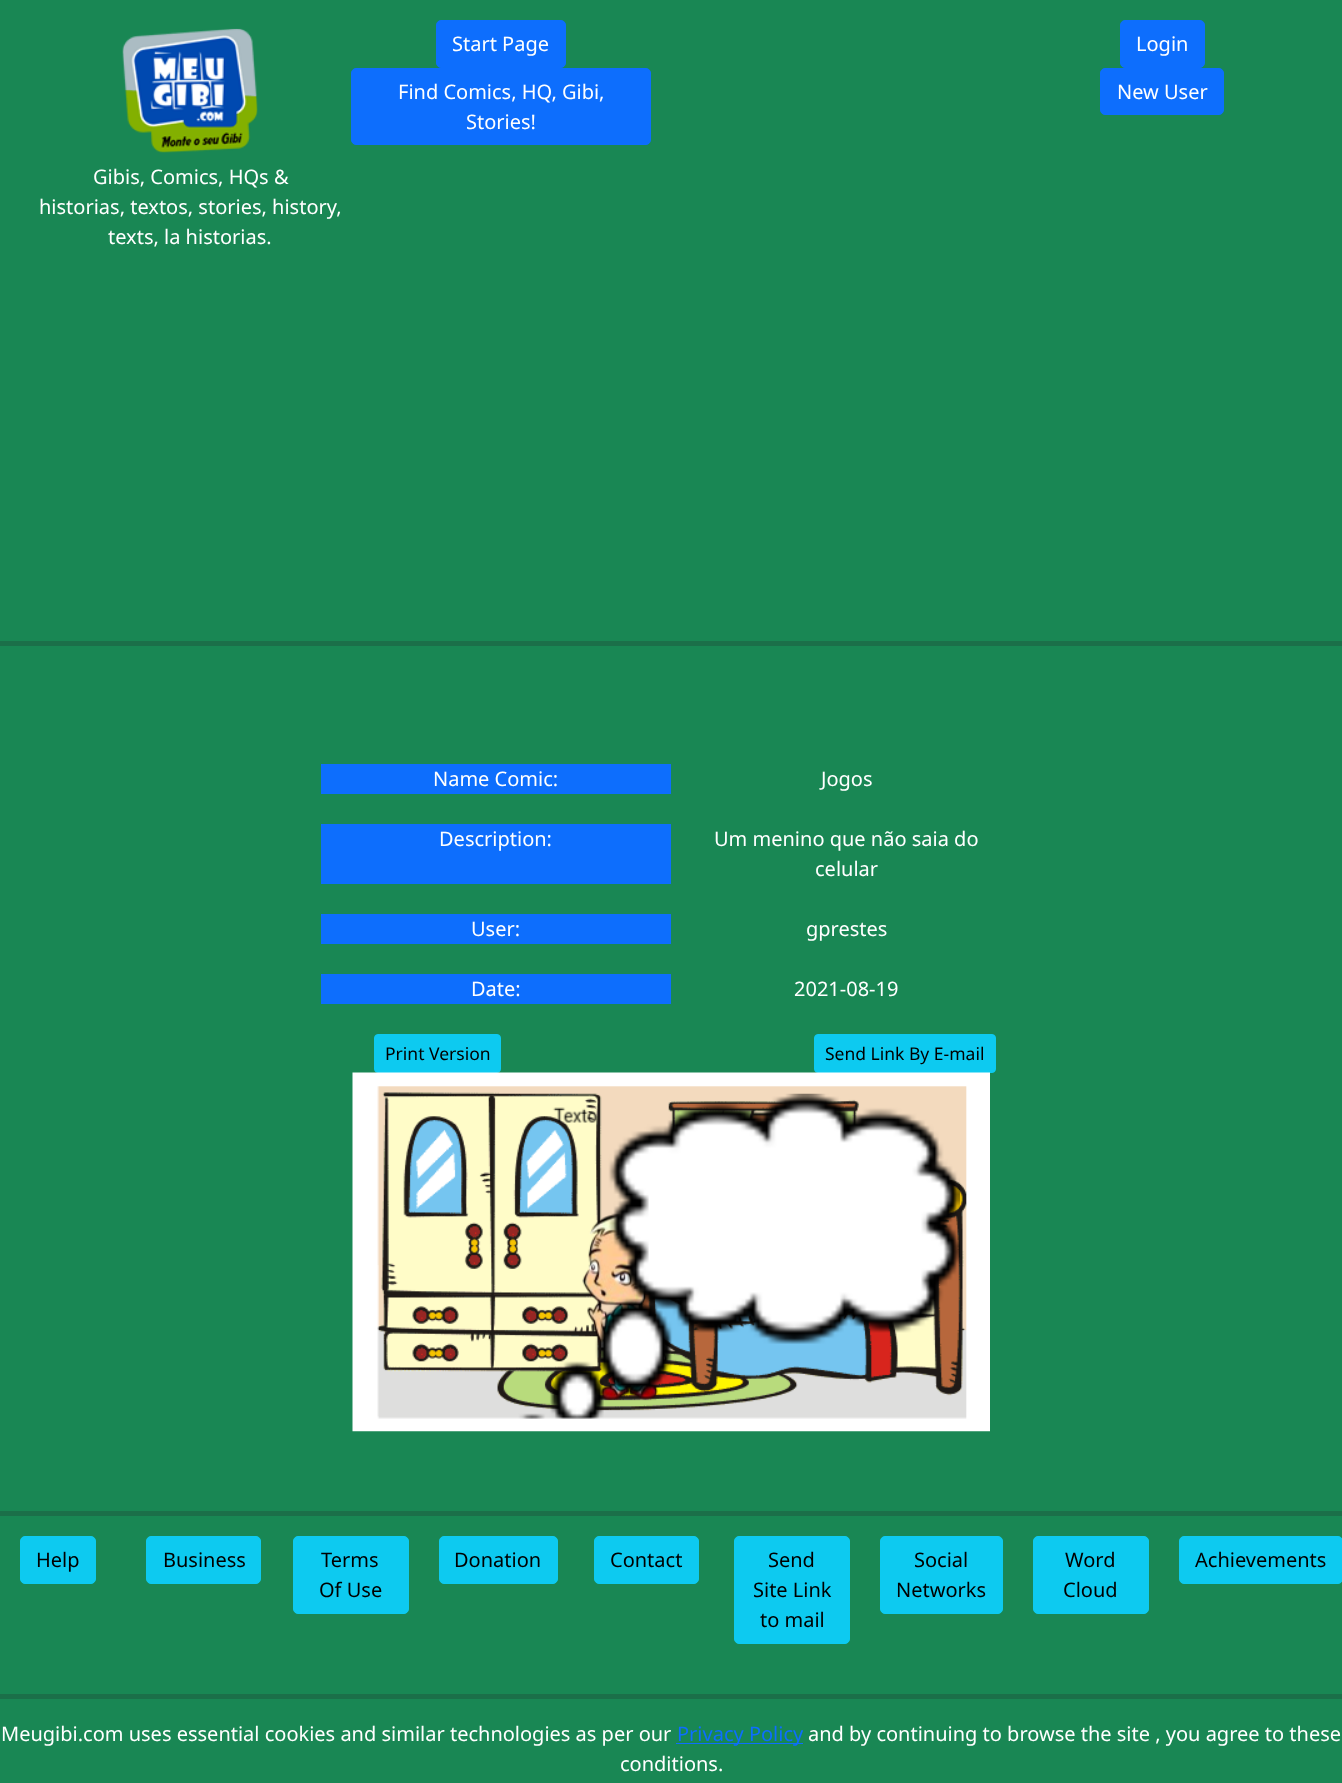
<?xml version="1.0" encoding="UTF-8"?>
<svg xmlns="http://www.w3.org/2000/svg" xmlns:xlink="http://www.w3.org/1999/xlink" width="1342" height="1783">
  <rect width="100%" height="100%" fill="#198754" />
  <rect x="436.5" y="20.5" width="129" height="47" rx="4.5" fill="#0d6efd" stroke="#0d6efd" />
  <rect x="1120.5" y="20.5" width="84" height="47" rx="4.5" fill="#0d6efd" stroke="#0d6efd" />
  <rect x="351.5" y="68.5" width="299" height="76" rx="4.5" fill="#0d6efd" stroke="#0d6efd" />
  <rect x="1100.5" y="68.5" width="123" height="46" rx="4.5" fill="#0d6efd" stroke="#0d6efd" />
  <image x="122" y="28" width="136" height="125" xlink:href="image1.png" />
  <rect y="641" width="1342" height="5" fill="#1b6f49" />
  <rect x="321" y="764" width="350" height="30" fill="#0d6efd" />
  <rect x="321" y="824" width="350" height="60" fill="#0d6efd" />
  <rect x="321" y="914" width="350" height="30" fill="#0d6efd" />
  <rect x="321" y="974" width="350" height="30" fill="#0d6efd" />
  <rect x="374.5" y="1034.5" width="126" height="38" rx="3.5" fill="#0dcaf0" stroke="#0dcaf0" />
  <rect x="814.5" y="1034.5" width="181" height="38" rx="3.5" fill="#0dcaf0" stroke="#0dcaf0" />
  <image x="352" y="1072" width="638" height="360" xlink:href="image2.png" />
  <rect y="1511" width="1342" height="5" fill="#1b6f49" />
  <rect x="20.5" y="1536.5" width="75" height="47" rx="4.5" fill="#0dcaf0" stroke="#0dcaf0" />
  <rect x="146.5" y="1536.5" width="114" height="47" rx="4.5" fill="#0dcaf0" stroke="#0dcaf0" />
  <rect x="293.5" y="1536.5" width="115" height="77" rx="4.5" fill="#0dcaf0" stroke="#0dcaf0" />
  <rect x="439.5" y="1536.5" width="118" height="47" rx="4.5" fill="#0dcaf0" stroke="#0dcaf0" />
  <rect x="594.5" y="1536.5" width="104" height="47" rx="4.5" fill="#0dcaf0" stroke="#0dcaf0" />
  <rect x="734.5" y="1536.5" width="115" height="107" rx="4.5" fill="#0dcaf0" stroke="#0dcaf0" />
  <rect x="880.5" y="1536.5" width="122" height="77" rx="4.5" fill="#0dcaf0" stroke="#0dcaf0" />
  <rect x="1033.5" y="1536.5" width="115" height="77" rx="4.5" fill="#0dcaf0" stroke="#0dcaf0" />
  <rect x="1179.5" y="1536.5" width="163" height="47" rx="4.5" fill="#0dcaf0" stroke="#0dcaf0" />
  <rect y="1694" width="1342" height="5" fill="#1b6f49" />
  <rect x="676" y="1743" width="127" height="1" fill="#0d6efd" />
  <text x="452" y="51" style="font-family: Noto Sans; font-size: 20px; fill: #ffffff">Start Page</text>
  <text x="1136" y="51" style="font-family: Noto Sans; font-size: 20px; fill: #ffffff">Login</text>
  <text x="398" y="99" style="font-family: Noto Sans; font-size: 20px; fill: #ffffff">Find Comics, HQ, Gibi,</text>
  <text x="466" y="129" style="font-family: Noto Sans; font-size: 20px; fill: #ffffff">Stories!</text>
  <text x="1117" y="99" style="font-family: Noto Sans; font-size: 20px; fill: #ffffff">New User</text>
  <text x="93" y="184" style="font-family: Noto Sans; font-size: 20px; fill: #ffffff">Gibis, Comics, HQs &amp;</text>
  <text x="39" y="214" style="font-family: Noto Sans; font-size: 20px; fill: #ffffff">historias, textos, stories, history,</text>
  <text x="108" y="244" style="font-family: Noto Sans; font-size: 20px; fill: #ffffff">texts, la historias.</text>
  <text x="433" y="786" style="font-family: Noto Sans; font-size: 20px; fill: #ffffff">Name Comic:</text>
  <text x="821" y="786" style="font-family: Noto Sans; font-size: 20px; fill: #ffffff">Jogos</text>
  <text x="439" y="846" style="font-family: Noto Sans; font-size: 20px; fill: #ffffff">Description:</text>
  <text x="714" y="846" style="font-family: Noto Sans; font-size: 20px; fill: #ffffff">Um menino que não saia do</text>
  <text x="815" y="876" style="font-family: Noto Sans; font-size: 20px; fill: #ffffff">celular</text>
  <text x="471" y="936" style="font-family: Noto Sans; font-size: 20px; fill: #ffffff">User:</text>
  <text x="806" y="936" style="font-family: Noto Sans; font-size: 20px; fill: #ffffff">gprestes</text>
  <text x="471" y="996" style="font-family: Noto Sans; font-size: 20px; fill: #ffffff">Date:</text>
  <text x="794" y="996" style="font-family: Noto Sans; font-size: 20px; fill: #ffffff">2021-08-19</text>
  <text x="385" y="1060" style="font-family: Noto Sans; font-size: 17.5px; fill: #000000">Print Version</text>
  <text x="825" y="1060" style="font-family: Noto Sans; font-size: 17.5px; fill: #000000">Send Link By E-mail</text>
  <text x="36" y="1567" style="font-family: Noto Sans; font-size: 20px; fill: #000000">Help</text>
  <text x="163" y="1567" style="font-family: Noto Sans; font-size: 20px; fill: #000000">Business</text>
  <text x="321" y="1567" style="font-family: Noto Sans; font-size: 20px; fill: #000000">Terms</text>
  <text x="319" y="1597" style="font-family: Noto Sans; font-size: 20px; fill: #000000">Of Use</text>
  <text x="454" y="1567" style="font-family: Noto Sans; font-size: 20px; fill: #000000">Donation</text>
  <text x="610" y="1567" style="font-family: Noto Sans; font-size: 20px; fill: #000000">Contact</text>
  <text x="768" y="1567" style="font-family: Noto Sans; font-size: 20px; fill: #000000">Send</text>
  <text x="753" y="1597" style="font-family: Noto Sans; font-size: 20px; fill: #000000">Site Link</text>
  <text x="760" y="1627" style="font-family: Noto Sans; font-size: 20px; fill: #000000">to mail</text>
  <text x="914" y="1567" style="font-family: Noto Sans; font-size: 20px; fill: #000000">Social</text>
  <text x="896" y="1597" style="font-family: Noto Sans; font-size: 20px; fill: #000000">Networks</text>
  <text x="1065" y="1567" style="font-family: Noto Sans; font-size: 20px; fill: #000000">Word</text>
  <text x="1063" y="1597" style="font-family: Noto Sans; font-size: 20px; fill: #000000">Cloud</text>
  <text x="1195" y="1567" style="font-family: Noto Sans; font-size: 20px; fill: #000000">Achievements</text>
  <text x="1" y="1741" style="font-family: Noto Sans; font-size: 20px; fill: #ffffff">Meugibi.com uses essential cookies and similar technologies as per our</text>
  <text x="677" y="1741" style="font-family: Noto Sans; font-size: 20px; fill: #0d6efd">Privacy Policy</text>
  <text x="808" y="1741" style="font-family: Noto Sans; font-size: 20px; fill: #ffffff">and by continuing to browse the site , you agree to these</text>
  <text x="620" y="1771" style="font-family: Noto Sans; font-size: 20px; fill: #ffffff">conditions.</text>
</svg>
